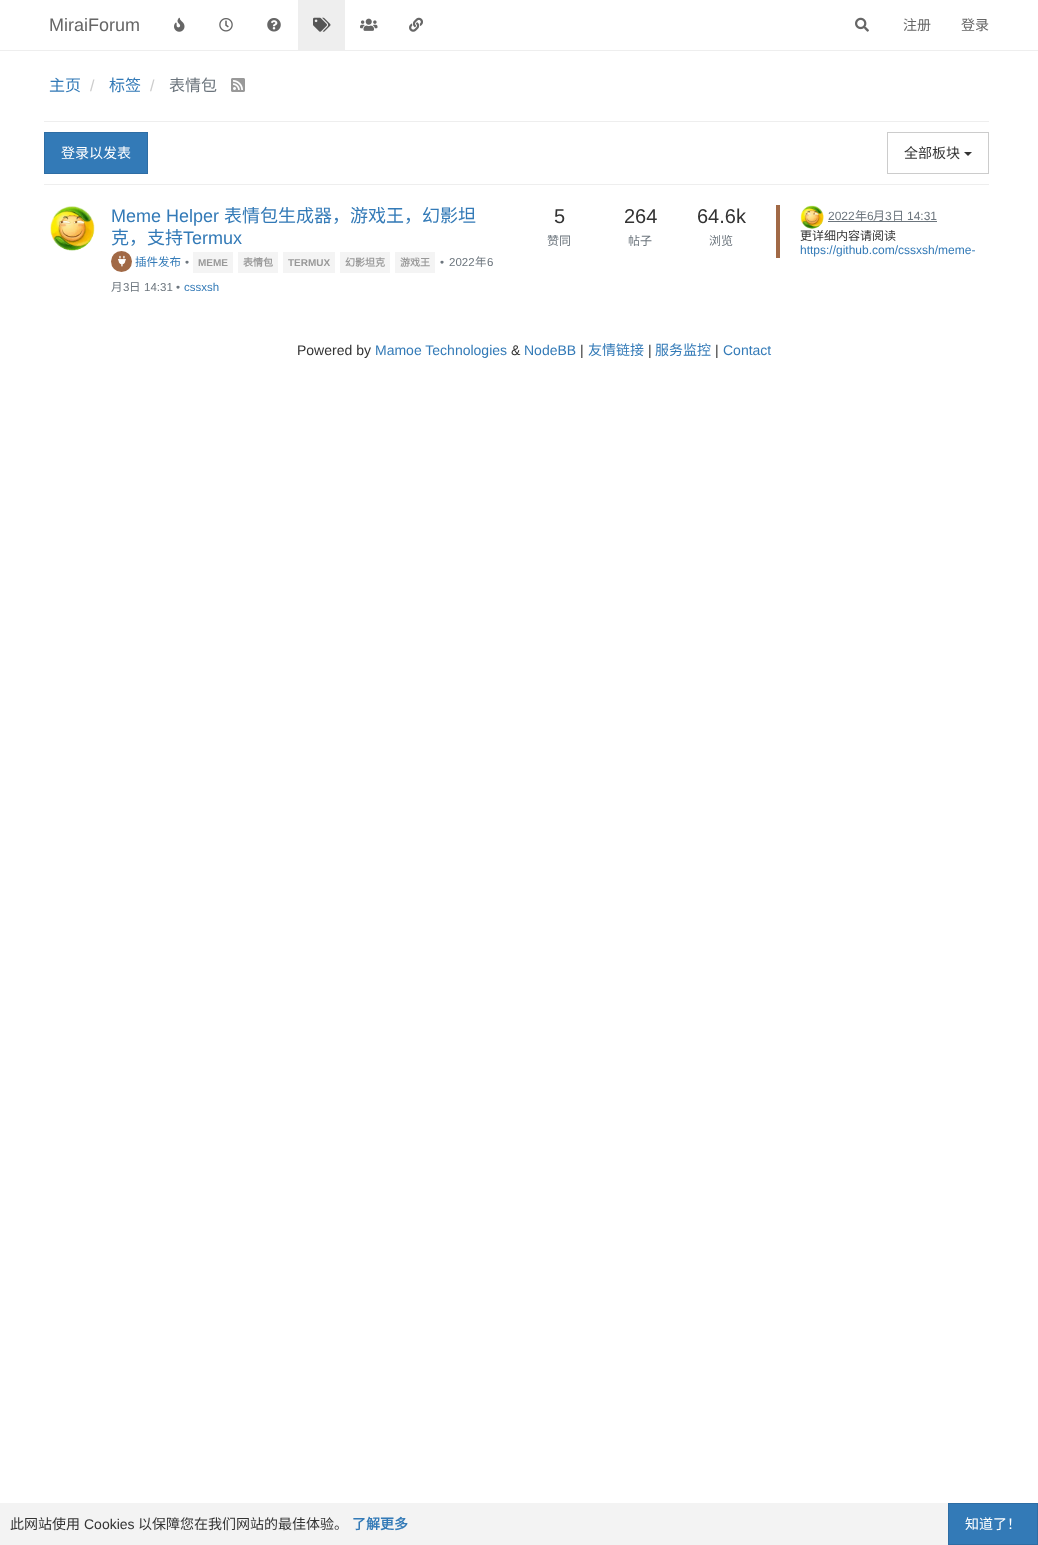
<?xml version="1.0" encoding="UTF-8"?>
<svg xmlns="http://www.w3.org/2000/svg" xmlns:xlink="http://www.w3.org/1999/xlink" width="1038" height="1545">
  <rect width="100%" height="100%" fill="#ffffff" />
  <rect y="50" width="1038" height="1" fill="#eeeeee" />
  <image x="174" y="17" width="11" height="15" xlink:href="image1.png" />
  <image x="219" y="18" width="14" height="14" xlink:href="image2.png" />
  <image x="267" y="18" width="14" height="14" xlink:href="image3.png" />
  <rect x="298" width="47" height="50" fill="#eeeeee" />
  <image x="313" y="17" width="18" height="15" xlink:href="image4.png" />
  <image x="360" y="18" width="18" height="13" xlink:href="image5.png" />
  <image x="409" y="17" width="14" height="15" xlink:href="image6.png" />
  <image x="855" y="17" width="14" height="15" xlink:href="image7.png" />
  <image x="231" y="78" width="14" height="14" xlink:href="image8.png" />
  <rect x="44" y="121" width="945" height="1" fill="#eeeeee" />
  <rect x="44" y="184" width="945" height="1" fill="#eeeeee" />
  <rect x="44.5" y="132.5" width="103" height="41" fill="#337ab7" stroke="#2e6da4" />
  <rect x="887.5" y="132.5" width="101" height="41" fill="none" stroke="#cccccc" />
  <path d="M 964 152 h 8 l -4 4 z" fill="#333333" />
  <image x="50" y="206" width="45" height="45" xlink:href="image9.png" />
  <circle cx="121.5" cy="261.5" r="10.5" fill="#a16946" />
  <image x="118" y="255" width="8" height="12" xlink:href="image10.png" />
  <rect x="193" y="252" width="40" height="21" fill="#f4f4f4" />
  <rect x="238" y="252" width="40" height="21" fill="#f4f4f4" />
  <rect x="283" y="252" width="52" height="21" fill="#f4f4f4" />
  <rect x="340" y="252" width="50" height="21" fill="#f4f4f4" />
  <rect x="395" y="252" width="40" height="21" fill="#f4f4f4" />
  <rect x="776" y="205" width="4" height="53" fill="#a16946" />
  <image x="800" y="205" width="24" height="24" xlink:href="image11.png" />
  <rect x="828" y="221" width="109" height="1" fill="#6c757d" />
  <rect y="1503" width="948" height="42" fill="#f3f3f3" />
  <rect x="948.5" y="1503.5" width="89" height="41" fill="#337ab7" stroke="#2e6da4" />
  <text x="49" y="31" style="font-family: Liberation Sans; font-size: 18px; fill: #666666">MiraiForum</text>
  <text x="903" y="30" style="font-family: Noto Sans CJK SC; font-size: 14px; fill: #666666">注册</text>
  <text x="961" y="30" style="font-family: Noto Sans CJK SC; font-size: 14px; fill: #666666">登录</text>
  <text x="49" y="91" style="font-family: Noto Sans CJK SC; font-size: 16px; fill: #337ab7">主页</text>
  <text x="90" y="91" style="font-family: Liberation Sans; font-size: 16px; fill: #cccccc">/</text>
  <text x="109" y="91" style="font-family: Noto Sans CJK SC; font-size: 16px; fill: #337ab7">标签</text>
  <text x="150" y="91" style="font-family: Liberation Sans; font-size: 16px; fill: #cccccc">/</text>
  <text x="169" y="91" style="font-family: Noto Sans CJK SC; font-size: 16px; fill: #6c757d">表情包</text>
  <text x="61" y="158" style="font-family: Noto Sans CJK SC; font-size: 14px; fill: #ffffff">登录以发表</text>
  <text x="904" y="158" style="font-family: Noto Sans CJK SC; font-size: 14px; fill: #333333">全部板块</text>
  <text x="111" y="222" style="font-family: Liberation Sans; font-size: 18px; fill: #337ab7">Meme Helper</text>
  <text x="224" y="222" style="font-family: Noto Sans CJK SC; font-size: 18px; fill: #337ab7">表情包生成器，游戏王，幻影坦</text>
  <text x="111" y="244" style="font-family: Noto Sans CJK SC; font-size: 18px; fill: #337ab7">克，支持</text>
  <text x="183" y="244" style="font-family: Liberation Sans; font-size: 18px; fill: #337ab7">Termux</text>
  <text x="135" y="266" style="font-family: Noto Sans CJK SC; font-size: 11.5px; fill: #337ab7">插件发布</text>
  <text x="185" y="266" style="font-family: Liberation Sans; font-size: 11.5px; fill: #6c757d">•</text>
  <text x="198" y="266" style="font-family: Liberation Sans; font-size: 10px; font-weight: bold; fill: #999999">MEME</text>
  <text x="243" y="266" style="font-family: Noto Sans CJK SC; font-size: 10px; font-weight: bold; fill: #999999">表情包</text>
  <text x="288" y="266" style="font-family: Liberation Sans; font-size: 10px; font-weight: bold; fill: #999999">TERMUX</text>
  <text x="345" y="266" style="font-family: Noto Sans CJK SC; font-size: 10px; font-weight: bold; fill: #999999">幻影坦克</text>
  <text x="400" y="266" style="font-family: Noto Sans CJK SC; font-size: 10px; font-weight: bold; fill: #999999">游戏王</text>
  <text x="440" y="266" style="font-family: Liberation Sans; font-size: 11.5px; fill: #6c757d">•</text>
  <text x="449" y="266" style="font-family: Liberation Sans; font-size: 11.5px; fill: #6c757d">2022</text>
  <text x="475" y="266" style="font-family: Noto Sans CJK SC; font-size: 11.5px; fill: #6c757d">年</text>
  <text x="487" y="266" style="font-family: Liberation Sans; font-size: 11.5px; fill: #6c757d">6</text>
  <text x="111" y="291" style="font-family: Noto Sans CJK SC; font-size: 11.5px; fill: #6c757d">月</text>
  <text x="123" y="291" style="font-family: Liberation Sans; font-size: 11.5px; fill: #6c757d">3</text>
  <text x="129" y="291" style="font-family: Noto Sans CJK SC; font-size: 11.5px; fill: #6c757d">日</text>
  <text x="144" y="291" style="font-family: Liberation Sans; font-size: 11.5px; fill: #6c757d">14:31 •</text>
  <text x="184" y="291" style="font-family: Liberation Sans; font-size: 11.5px; fill: #337ab7">cssxsh</text>
  <text x="554" y="223" style="font-family: Liberation Sans; font-size: 20px; fill: #333333">5</text>
  <text x="547" y="245" style="font-family: Noto Sans CJK SC; font-size: 12px; fill: #6c757d">赞同</text>
  <text x="624" y="223" style="font-family: Liberation Sans; font-size: 20px; fill: #333333">264</text>
  <text x="628" y="245" style="font-family: Noto Sans CJK SC; font-size: 12px; fill: #6c757d">帖子</text>
  <text x="697" y="223" style="font-family: Liberation Sans; font-size: 20px; fill: #333333">64.6k</text>
  <text x="709" y="245" style="font-family: Noto Sans CJK SC; font-size: 12px; fill: #6c757d">浏览</text>
  <text x="828" y="220" style="font-family: Liberation Sans; font-size: 12px; fill: #6c757d">2022</text>
  <text x="855" y="220" style="font-family: Noto Sans CJK SC; font-size: 12px; fill: #6c757d">年</text>
  <text x="867" y="220" style="font-family: Liberation Sans; font-size: 12px; fill: #6c757d">6</text>
  <text x="873" y="220" style="font-family: Noto Sans CJK SC; font-size: 12px; fill: #6c757d">月</text>
  <text x="885" y="220" style="font-family: Liberation Sans; font-size: 12px; fill: #6c757d">3</text>
  <text x="892" y="220" style="font-family: Noto Sans CJK SC; font-size: 12px; fill: #6c757d">日</text>
  <text x="907" y="220" style="font-family: Liberation Sans; font-size: 12px; fill: #6c757d">14:31</text>
  <text x="800" y="240" style="font-family: Noto Sans CJK SC; font-size: 12px; fill: #333333">更详细内容请阅读</text>
  <text x="800" y="254" style="font-family: Liberation Sans; font-size: 12px; fill: #337ab7">https://github.com/cssxsh/meme-</text>
  <text x="297" y="355" style="font-family: Liberation Sans; font-size: 14px; fill: #333333">Powered by</text>
  <text x="375" y="355" style="font-family: Liberation Sans; font-size: 14px; fill: #337ab7">Mamoe Technologies</text>
  <text x="511" y="355" style="font-family: Liberation Sans; font-size: 14px; fill: #333333">&amp;</text>
  <text x="524" y="355" style="font-family: Liberation Sans; font-size: 14px; fill: #337ab7">NodeBB</text>
  <text x="580" y="355" style="font-family: Liberation Sans; font-size: 14px; fill: #333333">|</text>
  <text x="588" y="355" style="font-family: Noto Sans CJK SC; font-size: 14px; fill: #337ab7">友情链接</text>
  <text x="648" y="355" style="font-family: Liberation Sans; font-size: 14px; fill: #333333">|</text>
  <text x="655" y="355" style="font-family: Noto Sans CJK SC; font-size: 14px; fill: #337ab7">服务监控</text>
  <text x="715" y="355" style="font-family: Liberation Sans; font-size: 14px; fill: #333333">|</text>
  <text x="723" y="355" style="font-family: Liberation Sans; font-size: 14px; fill: #337ab7">Contact</text>
  <text x="10" y="1529" style="font-family: Noto Sans CJK SC; font-size: 14px; fill: #333333">此网站使用</text>
  <text x="84" y="1529" style="font-family: Liberation Sans; font-size: 14px; fill: #333333">Cookies</text>
  <text x="138" y="1529" style="font-family: Noto Sans CJK SC; font-size: 14px; fill: #333333">以保障您在我们网站的最佳体验。</text>
  <text x="352" y="1529" style="font-family: Noto Sans CJK SC; font-size: 14px; font-weight: bold; fill: #337ab7">了解更多</text>
  <text x="965" y="1529" style="font-family: Noto Sans CJK SC; font-size: 14px; fill: #ffffff">知道了！</text>
</svg>
